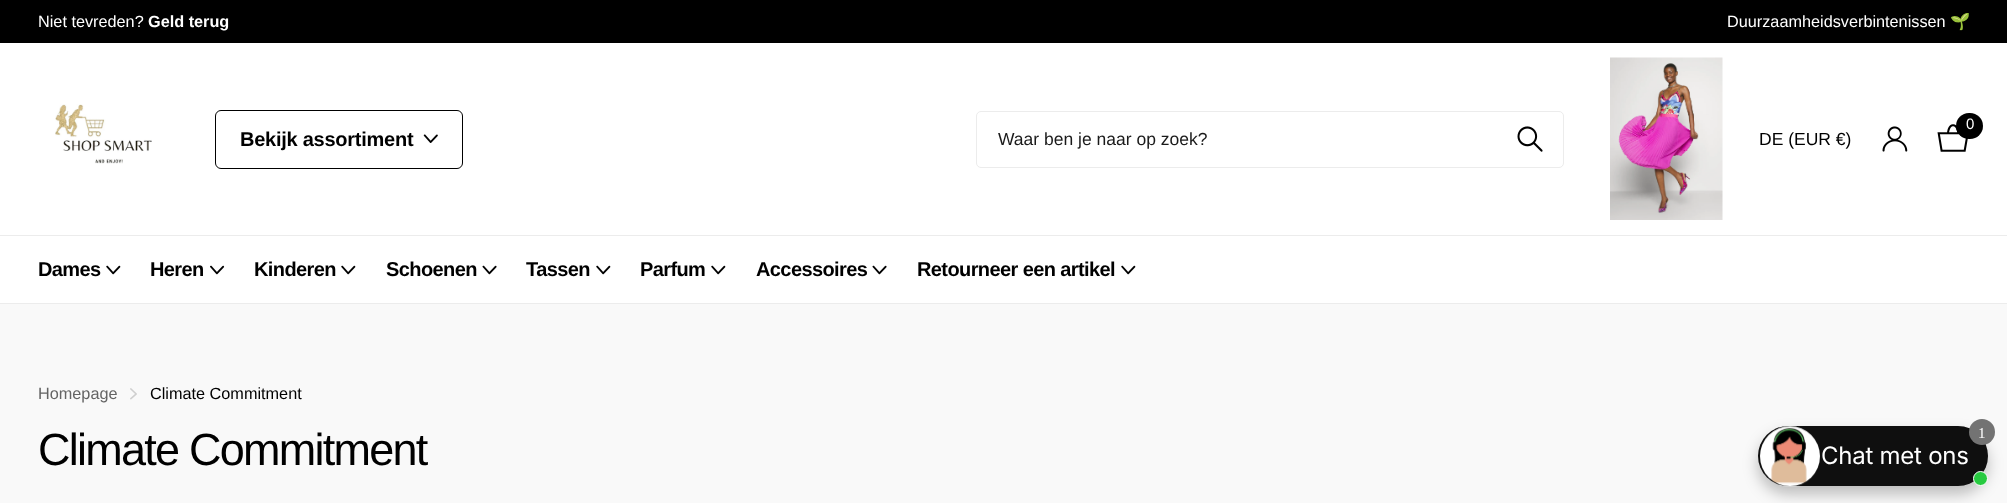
<?xml version="1.0" encoding="UTF-8"?>
<svg xmlns="http://www.w3.org/2000/svg" xmlns:xlink="http://www.w3.org/1999/xlink" width="2007" height="503">
  <rect width="100%" height="100%" fill="#f9f9f9" />
  <rect width="2007" height="43" fill="#000000" />
  <rect y="43" width="2007" height="260" fill="#ffffff" />
  <rect y="303" width="2007" height="1" fill="#ececec" />
  <image x="55" y="104" width="97" height="60" xlink:href="image1.png" />
  <rect x="215.5" y="110.5" width="247" height="58" rx="5.5" fill="none" stroke="#000000" />
  <image x="423" y="134" width="15" height="9" xlink:href="image2.png" />
  <rect x="976.5" y="111.5" width="587" height="56" rx="4.5" fill="none" stroke="#ececec" />
  <image x="1517" y="126" width="26" height="26" xlink:href="image3.png" />
  <image x="1610" y="57" width="113" height="163" xlink:href="image4.png" />
  <image x="1937" y="124" width="31" height="28" xlink:href="image5.png" />
  <rect x="1956" y="113" width="27" height="26" rx="13" fill="#000000" />
  <image x="1882" y="126" width="26" height="26" xlink:href="image6.png" />
  <rect y="235" width="2007" height="1" fill="#ececec" />
  <image x="106" y="265" width="15" height="10" xlink:href="image7.png" />
  <image x="210" y="265" width="15" height="10" xlink:href="image8.png" />
  <image x="341" y="265" width="15" height="10" xlink:href="image7.png" />
  <image x="482" y="265" width="15" height="10" xlink:href="image9.png" />
  <image x="596" y="265" width="15" height="10" xlink:href="image7.png" />
  <image x="711" y="265" width="15" height="10" xlink:href="image7.png" />
  <image x="872" y="265" width="15" height="10" xlink:href="image9.png" />
  <image x="1121" y="265" width="15" height="10" xlink:href="image7.png" />
  <image x="130" y="388" width="7" height="12" xlink:href="image10.png" />
  <rect x="1758" y="434" width="230" height="60" rx="30" fill="#000000" fill-opacity="0.25" filter="blur(7.5px)" />
  <rect x="1758" y="426" width="230" height="60" rx="30" fill="#0f0f0f" />
  <circle cx="1982" cy="432" r="13" fill="#737373" />
  <image x="1760" y="426" width="60" height="61" xlink:href="image11.png" />
  <circle cx="1980.5" cy="478.5" r="7" fill="#27ca40" stroke="#ffffff" />
  <text x="38" y="27" style="font-family: Liberation Sans; font-size: 16.25px; fill: #ffffff">Niet tevreden?</text>
  <text x="148" y="27" style="font-family: Liberation Sans; font-size: 16.25px; font-weight: bold; fill: #ffffff">Geld terug</text>
  <text x="1727" y="27" style="font-family: Liberation Sans; font-size: 16.25px; fill: #ffffff">Duurzaamheidsverbintenissen</text>
  <text x="1950" y="27" style="font-family: Noto Color Emoji; font-size: 16.25px; fill: #ffffff">🌱</text>
  <text x="240" y="146" style="font-family: Liberation Sans; font-size: 20px; font-weight: bold; letter-spacing: -0.25px; fill: #000000">Bekijk assortiment</text>
  <text x="998" y="145" style="font-family: Liberation Sans; font-size: 17.5px; fill: #1a1a1a">Waar ben je naar op zoek?</text>
  <text x="1966" y="129" style="font-family: Liberation Sans; font-size: 15px; fill: #ffffff">0</text>
  <text x="1759" y="145" style="font-family: Liberation Sans; font-size: 17.5px; fill: #000000">DE (EUR €)</text>
  <text x="38" y="276" style="font-family: Liberation Sans; font-size: 20px; font-weight: bold; letter-spacing: -0.6px; fill: #000000">Dames</text>
  <text x="150" y="276" style="font-family: Liberation Sans; font-size: 20px; font-weight: bold; letter-spacing: -0.6px; fill: #000000">Heren</text>
  <text x="254" y="276" style="font-family: Liberation Sans; font-size: 20px; font-weight: bold; letter-spacing: -0.6px; fill: #000000">Kinderen</text>
  <text x="386" y="276" style="font-family: Liberation Sans; font-size: 20px; font-weight: bold; letter-spacing: -0.6px; fill: #000000">Schoenen</text>
  <text x="526" y="276" style="font-family: Liberation Sans; font-size: 20px; font-weight: bold; letter-spacing: -0.6px; fill: #000000">Tassen</text>
  <text x="640" y="276" style="font-family: Liberation Sans; font-size: 20px; font-weight: bold; letter-spacing: -0.6px; fill: #000000">Parfum</text>
  <text x="756" y="276" style="font-family: Liberation Sans; font-size: 20px; font-weight: bold; letter-spacing: -0.6px; fill: #000000">Accessoires</text>
  <text x="917" y="276" style="font-family: Liberation Sans; font-size: 20px; font-weight: bold; letter-spacing: -0.6px; fill: #000000">Retourneer een artikel</text>
  <text x="38" y="399" style="font-family: Liberation Sans; font-size: 16.25px; fill: #646464">Homepage</text>
  <text x="150" y="399" style="font-family: Liberation Sans; font-size: 16.25px; fill: #000000">Climate Commitment</text>
  <text x="38" y="465" style="font-family: Liberation Sans; font-size: 45px; letter-spacing: -1.75px; fill: #000000">Climate Commitment</text>
  <text x="1978" y="438" style="font-family: Liberation Serif; font-size: 15px; fill: #ffffff">1</text>
  <text x="1821" y="464" style="font-family: Inter; font-size: 24px; letter-spacing: -0.25px; fill: #ffffff">Chat met ons</text>
</svg>
